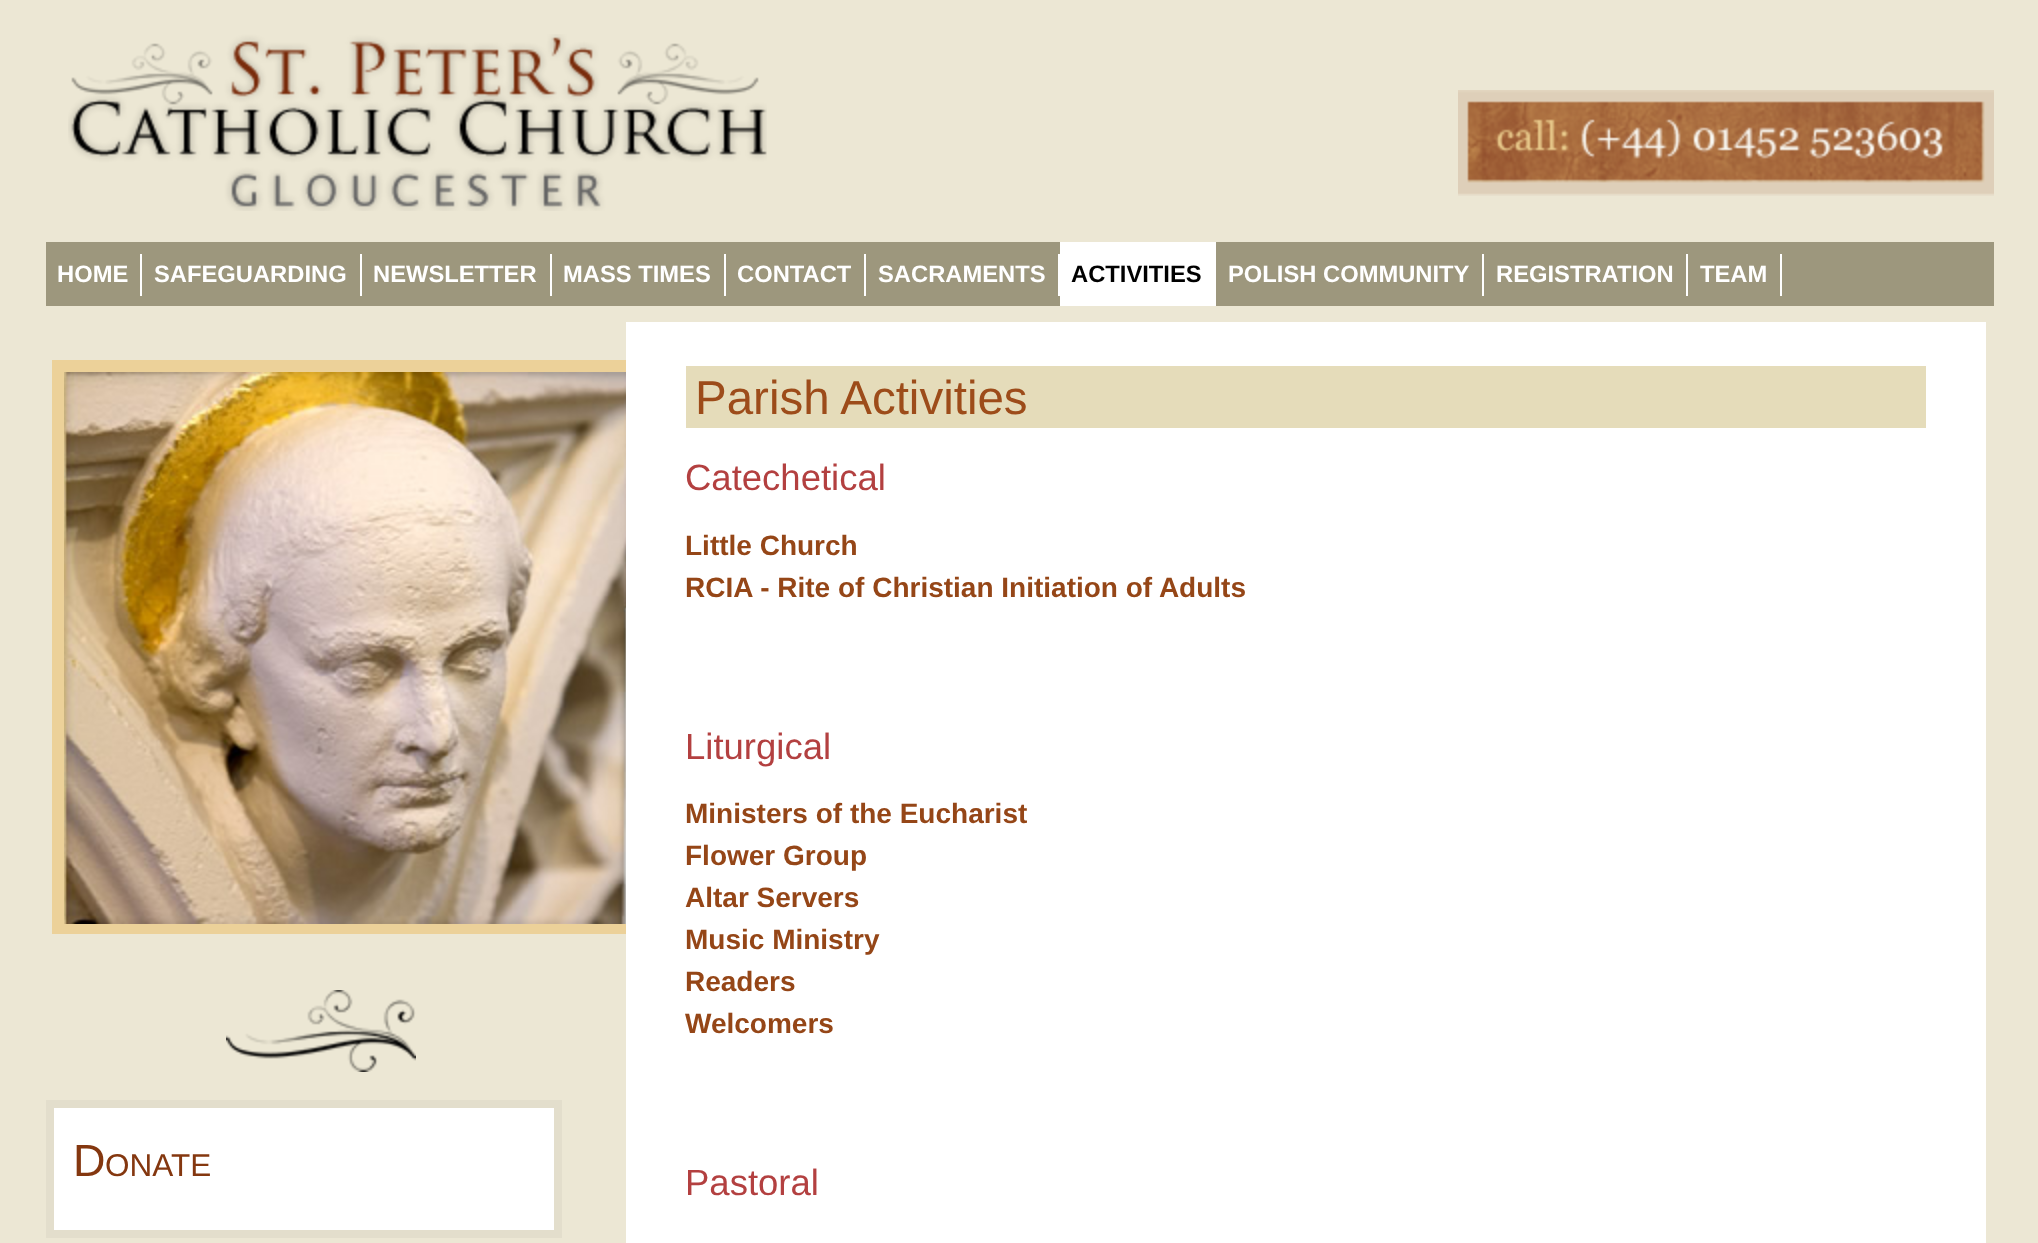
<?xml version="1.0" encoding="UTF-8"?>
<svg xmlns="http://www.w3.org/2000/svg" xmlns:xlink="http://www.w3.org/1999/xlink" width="2038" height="1243">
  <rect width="100%" height="100%" fill="#ece7d4" />
  <image x="68" y="34" width="699" height="177" xlink:href="image1.png" />
  <image x="1458" y="90" width="536" height="106" xlink:href="image2.png" />
  <rect x="46" y="242" width="1948" height="64" fill="#9d977d" />
  <rect x="140" y="254" width="2" height="42" fill="#ffffff" />
  <rect x="360" y="254" width="2" height="42" fill="#ffffff" />
  <rect x="550" y="254" width="2" height="42" fill="#ffffff" />
  <rect x="724" y="254" width="2" height="42" fill="#ffffff" />
  <rect x="864" y="254" width="2" height="42" fill="#ffffff" />
  <rect x="1058" y="254" width="2" height="42" fill="#ffffff" />
  <rect x="1060" y="242" width="156" height="64" fill="#ffffff" />
  <rect x="1482" y="254" width="2" height="42" fill="#ffffff" />
  <rect x="1686" y="254" width="2" height="42" fill="#ffffff" />
  <rect x="1780" y="254" width="2" height="42" fill="#ffffff" />
  <rect x="64" y="360" width="562" height="12" fill="#ecd199" />
  <rect x="64" y="924" width="562" height="10" fill="#ecd199" />
  <rect x="52" y="360" width="12" height="574" fill="#ecd199" />
  <image x="64" y="372" width="562" height="552" xlink:href="image3.png" />
  <image x="226" y="990" width="190" height="82" xlink:href="image4.png" />
  <rect x="50" y="1104" width="508" height="130" fill="#ffffff" stroke="#e3decc" stroke-width="8" />
  <rect x="626" y="322" width="1360" height="921" fill="#ffffff" />
  <rect x="686" y="366" width="1240" height="62" fill="#e5dcba" />
  <text x="57" y="282" style="font-family: Liberation Sans; font-size: 23.75px; font-weight: bold; fill: #ffffff">HOME</text>
  <text x="154" y="282" style="font-family: Liberation Sans; font-size: 23.75px; font-weight: bold; fill: #ffffff">SAFEGUARDING</text>
  <text x="373" y="282" style="font-family: Liberation Sans; font-size: 23.75px; font-weight: bold; fill: #ffffff">NEWSLETTER</text>
  <text x="563" y="282" style="font-family: Liberation Sans; font-size: 23.75px; font-weight: bold; fill: #ffffff">MASS TIMES</text>
  <text x="737" y="282" style="font-family: Liberation Sans; font-size: 23.75px; font-weight: bold; fill: #ffffff">CONTACT</text>
  <text x="878" y="282" style="font-family: Liberation Sans; font-size: 23.75px; font-weight: bold; fill: #ffffff">SACRAMENTS</text>
  <text x="1071" y="282" style="font-family: Liberation Sans; font-size: 23.75px; font-weight: bold; fill: #000000">ACTIVITIES</text>
  <text x="1228" y="282" style="font-family: Liberation Sans; font-size: 23.75px; font-weight: bold; fill: #ffffff">POLISH COMMUNITY</text>
  <text x="1496" y="282" style="font-family: Liberation Sans; font-size: 23.75px; font-weight: bold; fill: #ffffff">REGISTRATION</text>
  <text x="1700" y="282" style="font-family: Liberation Sans; font-size: 23.75px; font-weight: bold; fill: #ffffff">TEAM</text>
  <text x="73" y="1176" style="font-family: Liberation Sans; font-size: 45px; fill: #84370f">D</text>
  <text x="105" y="1176" style="font-family: Liberation Sans; font-size: 31.5px; fill: #84370f">ONATE</text>
  <text x="695" y="414" style="font-family: Liberation Sans; font-size: 47.5px; fill: #9d4c1a">Parish Activities</text>
  <text x="685" y="490" style="font-family: Liberation Sans; font-size: 36.5px; fill: #b34040">Catechetical</text>
  <text x="685" y="555" style="font-family: Liberation Sans; font-size: 28px; font-weight: bold; fill: #954617">Little Church</text>
  <text x="685" y="597" style="font-family: Liberation Sans; font-size: 28px; font-weight: bold; fill: #954617">RCIA - Rite of Christian Initiation of Adults</text>
  <text x="685" y="759" style="font-family: Liberation Sans; font-size: 36.5px; fill: #b34040">Liturgical</text>
  <text x="685" y="823" style="font-family: Liberation Sans; font-size: 28px; font-weight: bold; fill: #954617">Ministers of the Eucharist</text>
  <text x="685" y="865" style="font-family: Liberation Sans; font-size: 28px; font-weight: bold; fill: #954617">Flower Group</text>
  <text x="685" y="907" style="font-family: Liberation Sans; font-size: 28px; font-weight: bold; fill: #954617">Altar Servers</text>
  <text x="685" y="949" style="font-family: Liberation Sans; font-size: 28px; font-weight: bold; fill: #954617">Music Ministry</text>
  <text x="685" y="991" style="font-family: Liberation Sans; font-size: 28px; font-weight: bold; fill: #954617">Readers</text>
  <text x="685" y="1033" style="font-family: Liberation Sans; font-size: 28px; font-weight: bold; fill: #954617">Welcomers</text>
  <text x="685" y="1195" style="font-family: Liberation Sans; font-size: 36.5px; fill: #b34040">Pastoral</text>
</svg>
